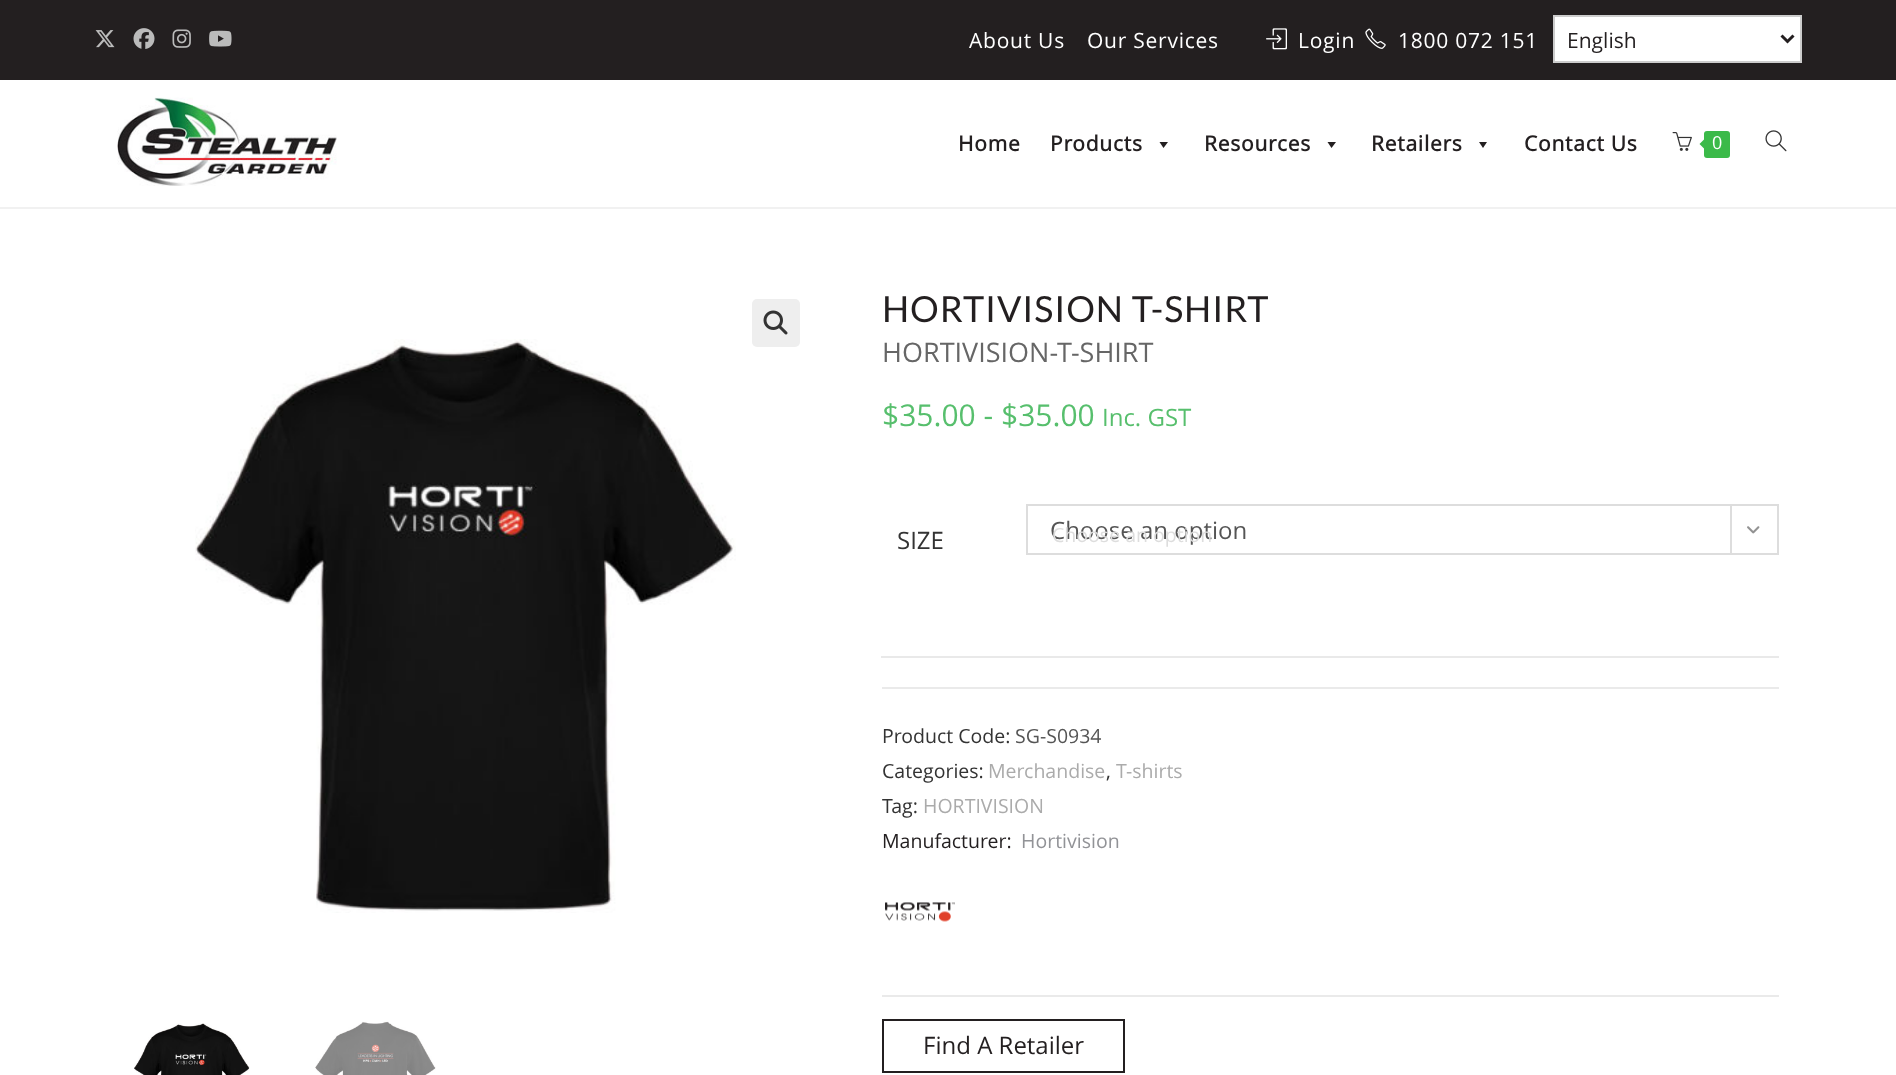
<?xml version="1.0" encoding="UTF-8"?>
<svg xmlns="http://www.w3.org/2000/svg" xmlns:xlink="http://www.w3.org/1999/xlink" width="1896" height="1075">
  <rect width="100%" height="100%" fill="#ffffff" />
  <rect width="1896" height="80" fill="#231f20" />
  <image x="95" y="30" width="20" height="18" xlink:href="image1.png" />
  <image x="133" y="28" width="22" height="21" xlink:href="image2.png" />
  <image x="172" y="29" width="19" height="19" xlink:href="image3.png" />
  <image x="209" y="30" width="23" height="17" xlink:href="image4.png" />
  <image x="1266" y="28" width="21" height="22" xlink:href="image5.png" />
  <image x="1365" y="28" width="21" height="21" xlink:href="image6.png" />
  <rect x="1554" y="16" width="247" height="46" fill="#ffffff" stroke="#cccccc" stroke-width="2" />
  <path d="M 1781.5 35.5 l 6 6 l 6 -6" fill="none" stroke="#231f20" stroke-width="3" />
  <rect y="207" width="1896" height="2" fill="#f1f1f1" />
  <image x="117" y="97" width="220" height="89" xlink:href="image7.png" />
  <path d="M 1168 142 l -4.5 6 l -4 -6 z" fill="#231f20" />
  <path d="M 1336 142 l -4.5 6 l -4 -6 z" fill="#231f20" />
  <path d="M 1487 142 l -4 6 l -4 -6 z" fill="#231f20" />
  <image x="1672" y="132" width="20" height="19" xlink:href="image8.png" />
  <rect x="1704" y="131" width="26" height="27" rx="3" fill="#3bba49" />
  <path d="M 1707 136.5 v 15 l -7.5 -7.5 z" fill="#3bba49" />
  <image x="1765" y="130" width="22" height="22" xlink:href="image9.png" />
  <rect x="752" y="299" width="48" height="48" rx="5" fill="#eeeeee" />
  <image x="763" y="310" width="25" height="25" xlink:href="image10.png" />
  <image x="195" y="339" width="541" height="574" xlink:href="image11.png" />
  <image x="134" y="1023" width="116" height="52" xlink:href="image12.png" />
  <image x="315" y="1021" width="121" height="54" xlink:href="image13.png" />
  <rect x="882" y="687" width="897" height="2" fill="#eaeaea" />
  <rect x="881" y="656" width="898" height="2" fill="#e9e9e9" />
  <rect x="1027" y="505" width="751" height="49" fill="none" stroke="#dddddd" stroke-width="2" />
  <rect x="1730" y="506" width="2" height="48" fill="#dddddd" />
  <image x="1747" y="526" width="13" height="8" xlink:href="image14.png" />
  <rect x="882" y="995" width="897" height="2" fill="#eaeaea" />
  <image x="885" y="902" width="70" height="20" xlink:href="image15.png" />
  <rect x="883" y="1020" width="241" height="52" fill="none" stroke="#231f20" stroke-width="2" />
  <text x="969" y="48" style="font-family: Open Sans; font-size: 21px; letter-spacing: 0.75px; fill: #ffffff">About Us</text>
  <text x="1087" y="48" style="font-family: Open Sans; font-size: 21px; letter-spacing: 0.75px; fill: #ffffff">Our Services</text>
  <text x="1298" y="48" style="font-family: Open Sans; font-size: 21px; letter-spacing: 0.75px; fill: #ffffff">Login</text>
  <text x="1398" y="48" style="font-family: Open Sans; font-size: 21px; letter-spacing: 0.75px; fill: #ffffff">1800 072 151</text>
  <text x="1567" y="48" style="font-family: Open Sans; font-size: 21px; fill: #231f20">English</text>
  <text x="958" y="151" style="font-family: Open Sans; font-size: 21px; font-weight: bold; letter-spacing: 0.75px; fill: #231f20">Home</text>
  <text x="1050" y="151" style="font-family: Open Sans; font-size: 21px; font-weight: bold; letter-spacing: 0.75px; fill: #231f20">Products</text>
  <text x="1204" y="151" style="font-family: Open Sans; font-size: 21px; font-weight: bold; letter-spacing: 0.75px; fill: #231f20">Resources</text>
  <text x="1371" y="151" style="font-family: Open Sans; font-size: 21px; font-weight: bold; letter-spacing: 0.75px; fill: #231f20">Retailers</text>
  <text x="1524" y="151" style="font-family: Open Sans; font-size: 21px; font-weight: bold; letter-spacing: 0.75px; fill: #231f20">Contact Us</text>
  <text x="1712" y="149" style="font-family: Open Sans; font-size: 18px; fill: #ffffff">0</text>
  <text x="882" y="322" style="font-family: Lato; font-size: 36px; letter-spacing: 0.9px; fill: #231f20">HORTIVISION T-SHIRT</text>
  <text x="882" y="362" style="font-family: Open Sans; font-size: 27px; fill: #666666">HORTIVISION-T-SHIRT</text>
  <text x="882" y="426" style="font-family: Open Sans; font-size: 30px; fill: #57bf6d">$35.00 - $35.00</text>
  <text x="1102" y="426" style="font-family: Open Sans; font-size: 24px; fill: #57bf6d">Inc. GST</text>
  <text x="897" y="549" style="font-family: Open Sans; font-size: 24px; fill: #333333">SIZE</text>
  <text x="1050" y="539" style="font-family: Open Sans; font-size: 24px; fill: #555555">Choose an option</text>
  <text x="1052" y="542" style="font-family: Open Sans; font-size: 19.5px; fill: #dddddd">Choose an option</text>
  <text x="882" y="743" style="font-family: Open Sans; font-size: 19.5px; fill: #333333">Product Code:</text>
  <text x="1015" y="743" style="font-family: Open Sans; font-size: 19.5px; fill: #555555">SG-S0934</text>
  <text x="882" y="778" style="font-family: Open Sans; font-size: 19.5px; fill: #333333">Categories:</text>
  <text x="988" y="778" style="font-family: Open Sans; font-size: 19.5px; fill: #ababab">Merchandise</text>
  <text x="1106" y="778" style="font-family: Open Sans; font-size: 19.5px; fill: #333333">,</text>
  <text x="1116" y="778" style="font-family: Open Sans; font-size: 19.5px; fill: #ababab">T-shirts</text>
  <text x="882" y="813" style="font-family: Open Sans; font-size: 19.5px; fill: #333333">Tag:</text>
  <text x="923" y="813" style="font-family: Open Sans; font-size: 19.5px; fill: #ababab">HORTIVISION</text>
  <text x="882" y="848" style="font-family: Open Sans; font-size: 19.5px; fill: #231f20">Manufacturer:</text>
  <text x="1021" y="848" style="font-family: Open Sans; font-size: 19.5px; fill: #929397">Hortivision</text>
  <text x="923" y="1054" style="font-family: Open Sans; font-size: 24px; fill: #231f20">Find A Retailer</text>
</svg>
